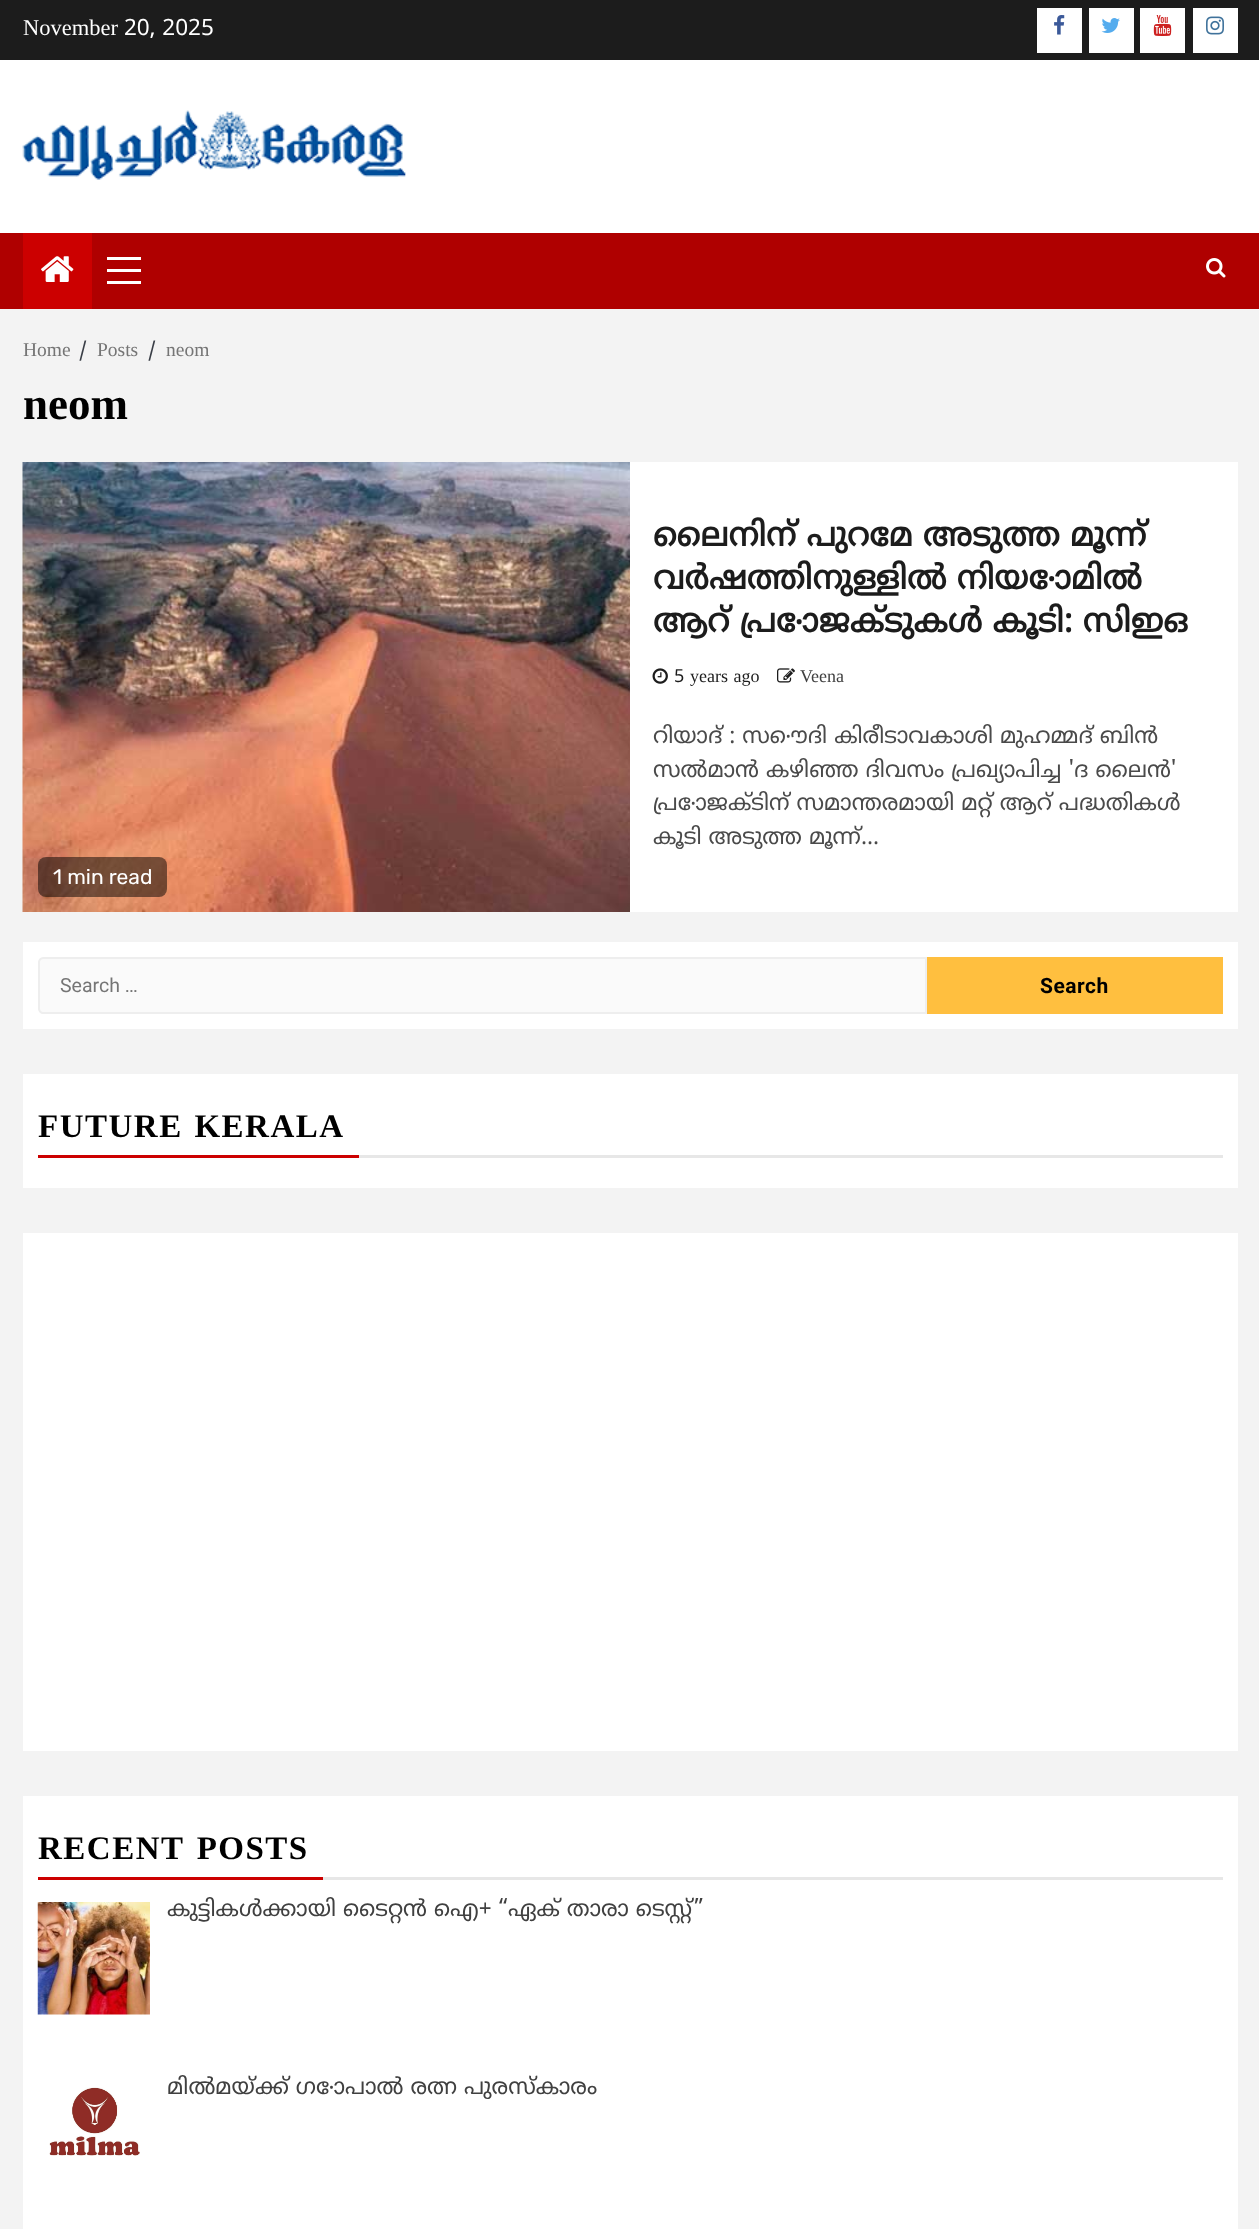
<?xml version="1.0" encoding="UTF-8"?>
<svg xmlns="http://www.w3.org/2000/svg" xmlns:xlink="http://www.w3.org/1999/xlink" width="1259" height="2229">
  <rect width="100%" height="100%" fill="#f3f3f3" />
  <rect width="1259" height="60" fill="#1c1c1c" />
  <rect x="1037" y="8" width="45" height="45" fill="#ffffff" />
  <image x="1054" y="15" width="11" height="20" xlink:href="image1.png" />
  <rect x="1089" y="8" width="45" height="45" fill="#ffffff" />
  <image x="1101" y="18" width="19" height="15" xlink:href="image2.png" />
  <rect x="1140" y="8" width="45" height="45" fill="#ffffff" />
  <image x="1153" y="15" width="19" height="21" xlink:href="image3.png" />
  <rect x="1193" y="8" width="45" height="45" fill="#ffffff" />
  <image x="1206" y="16" width="18" height="19" xlink:href="image4.png" />
  <rect y="60" width="1259" height="173" fill="#ffffff" />
  <image x="22" y="110" width="384" height="70" xlink:href="image5.png" />
  <rect y="233" width="1259" height="76" fill="#af0000" />
  <rect x="23" y="233" width="69" height="76" fill="#cc0000" />
  <image x="41" y="256" width="33" height="26" xlink:href="image6.png" />
  <rect x="107" y="269" width="34" height="3" fill="#ffffff" />
  <rect x="107" y="257" width="34" height="3" fill="#ffffff" />
  <rect x="107" y="281" width="34" height="3" fill="#ffffff" />
  <image x="1206" y="258" width="20" height="20" xlink:href="image7.png" />
  <rect x="630" y="462" width="608" height="450" fill="#ffffff" />
  <image x="652" y="668" width="16" height="16" xlink:href="image8.png" />
  <image x="777" y="668" width="18" height="15" xlink:href="image9.png" />
  <image x="22" y="462" width="608" height="450" xlink:href="image10.png" />
  <rect x="38" y="857" width="129" height="40" rx="8" fill="#000000" fill-opacity="0.5" />
  <rect x="23" y="942" width="1215" height="87" fill="#ffffff" />
  <path d="M 43 958 h 883 v 55 h -883 c -2 0 -4 -2 -4 -4 v -47 c 0 -2 2 -4 4 -4 z" fill="#fafafa" stroke="#eeeeee" stroke-width="2" />
  <rect x="927" y="957" width="296" height="57" fill="#ffbf3f" />
  <rect x="23" y="1074" width="1215" height="114" fill="#ffffff" />
  <rect x="38" y="1155" width="321" height="3" fill="#cc0000" />
  <rect x="359" y="1155" width="864" height="3" fill="#e7e7e7" />
  <rect x="23" y="1233" width="1215" height="518" fill="#ffffff" />
  <rect x="23" y="1796" width="1215" height="433" fill="#ffffff" />
  <rect x="38" y="1877" width="285" height="3" fill="#cc0000" />
  <rect x="323" y="1877" width="900" height="3" fill="#e7e7e7" />
  <image x="37" y="1902" width="113" height="113" xlink:href="image11.png" />
  <image x="49" y="2087" width="91" height="69" xlink:href="image12.png" />
  <text x="23" y="35" style="font-family: Liberation Serif; font-size: 22.5px; fill: #ffffff">November</text>
  <text x="124" y="35" style="font-family: Noto Sans Malayalam UI; font-size: 22.5px; fill: #ffffff">20, 2025</text>
  <text x="23" y="356" style="font-family: Liberation Serif; font-size: 19.5px; fill: #757575">Home</text>
  <text x="79" y="356" style="font-family: Noto Sans Malayalam UI; font-size: 19.5px; fill: #393e46">/</text>
  <text x="97" y="356" style="font-family: Liberation Serif; font-size: 19.5px; fill: #757575">Posts</text>
  <text x="148" y="356" style="font-family: Noto Sans Malayalam UI; font-size: 19.5px; fill: #393e46">/</text>
  <text x="166" y="356" style="font-family: Liberation Serif; font-size: 19.5px; fill: #757575">neom</text>
  <text x="23" y="419" style="font-family: Liberation Serif; font-size: 45px; font-weight: bold; fill: #000000">neom</text>
  <text x="653" y="546" style="font-family: Noto Sans Malayalam UI; font-size: 33px; font-weight: bold; fill: #1c1c1c">ലൈനിന് പുറമേ അടുത്ത മൂന്ന്</text>
  <text x="653" y="589" style="font-family: Noto Sans Malayalam UI; font-size: 33px; font-weight: bold; fill: #1c1c1c">വർഷത്തിനുള്ളിൽ നിയോമിൽ</text>
  <text x="653" y="632" style="font-family: Noto Sans Malayalam UI; font-size: 33px; font-weight: bold; fill: #1c1c1c">ആറ് പ്രോജക്ടുകൾ കൂടി: സിഇഒ</text>
  <text x="674" y="682" style="font-family: Noto Sans Malayalam UI; font-size: 18px; fill: #1c1c1c">5</text>
  <text x="690" y="682" word-spacing="1" style="font-family: Liberation Serif; font-size: 18px; fill: #1c1c1c">years ago</text>
  <text x="800" y="682" style="font-family: Liberation Serif; font-size: 18px; fill: #404040">Veena</text>
  <text x="653" y="743" style="font-family: Noto Sans Malayalam UI; font-size: 22.5px; fill: #4a4a4a">റിയാദ് : സൌദി കിരീടാവകാശി മുഹമ്മദ് ബിൻ</text>
  <text x="653" y="777" style="font-family: Noto Sans Malayalam UI; font-size: 22.5px; fill: #4a4a4a">സൽമാൻ കഴിഞ്ഞ ദിവസം പ്രഖ്യാപിച്ച 'ദ ലൈൻ'</text>
  <text x="653" y="810" style="font-family: Noto Sans Malayalam UI; font-size: 22.5px; fill: #4a4a4a">പ്രോജക്ടിന് സമാന്തരമായി മറ്റ് ആറ് പദ്ധതികൾ</text>
  <text x="653" y="844" style="font-family: Noto Sans Malayalam UI; font-size: 22.5px; fill: #4a4a4a">കൂടി അടുത്ത മൂന്ന്...</text>
  <text x="53" y="884" style="font-family: Rubik; font-size: 21px; fill: #ffffff">1 min read</text>
  <text x="60" y="992" style="font-family: Roboto; font-size: 19.5px; fill: #757575">Search …</text>
  <text x="1040" y="993" style="font-family: Roboto; font-size: 21px; font-weight: bold; letter-spacing: 0.5px; fill: #000000">Search</text>
  <text x="38" y="1137" word-spacing="2" style="font-family: Liberation Serif; font-size: 33px; font-weight: bold; letter-spacing: 1.5px; fill: #000000">FUTURE KERALA</text>
  <text x="38" y="1859" word-spacing="3" style="font-family: Liberation Serif; font-size: 33px; font-weight: bold; letter-spacing: 1.5px; fill: #000000">RECENT POSTS</text>
  <text x="167" y="1916" style="font-family: Noto Sans Malayalam UI; font-size: 22.5px; fill: #404040">കുട്ടികൾക്കായി ടൈറ്റൻ ഐ+ “ഏക് താരാ ടെസ്റ്റ്”</text>
  <text x="167" y="2094" style="font-family: Noto Sans Malayalam UI; font-size: 22.5px; fill: #404040">മില്‍മയ്ക്ക് ഗോപാല്‍ രത്ന പുരസ്കാരം</text>
</svg>
